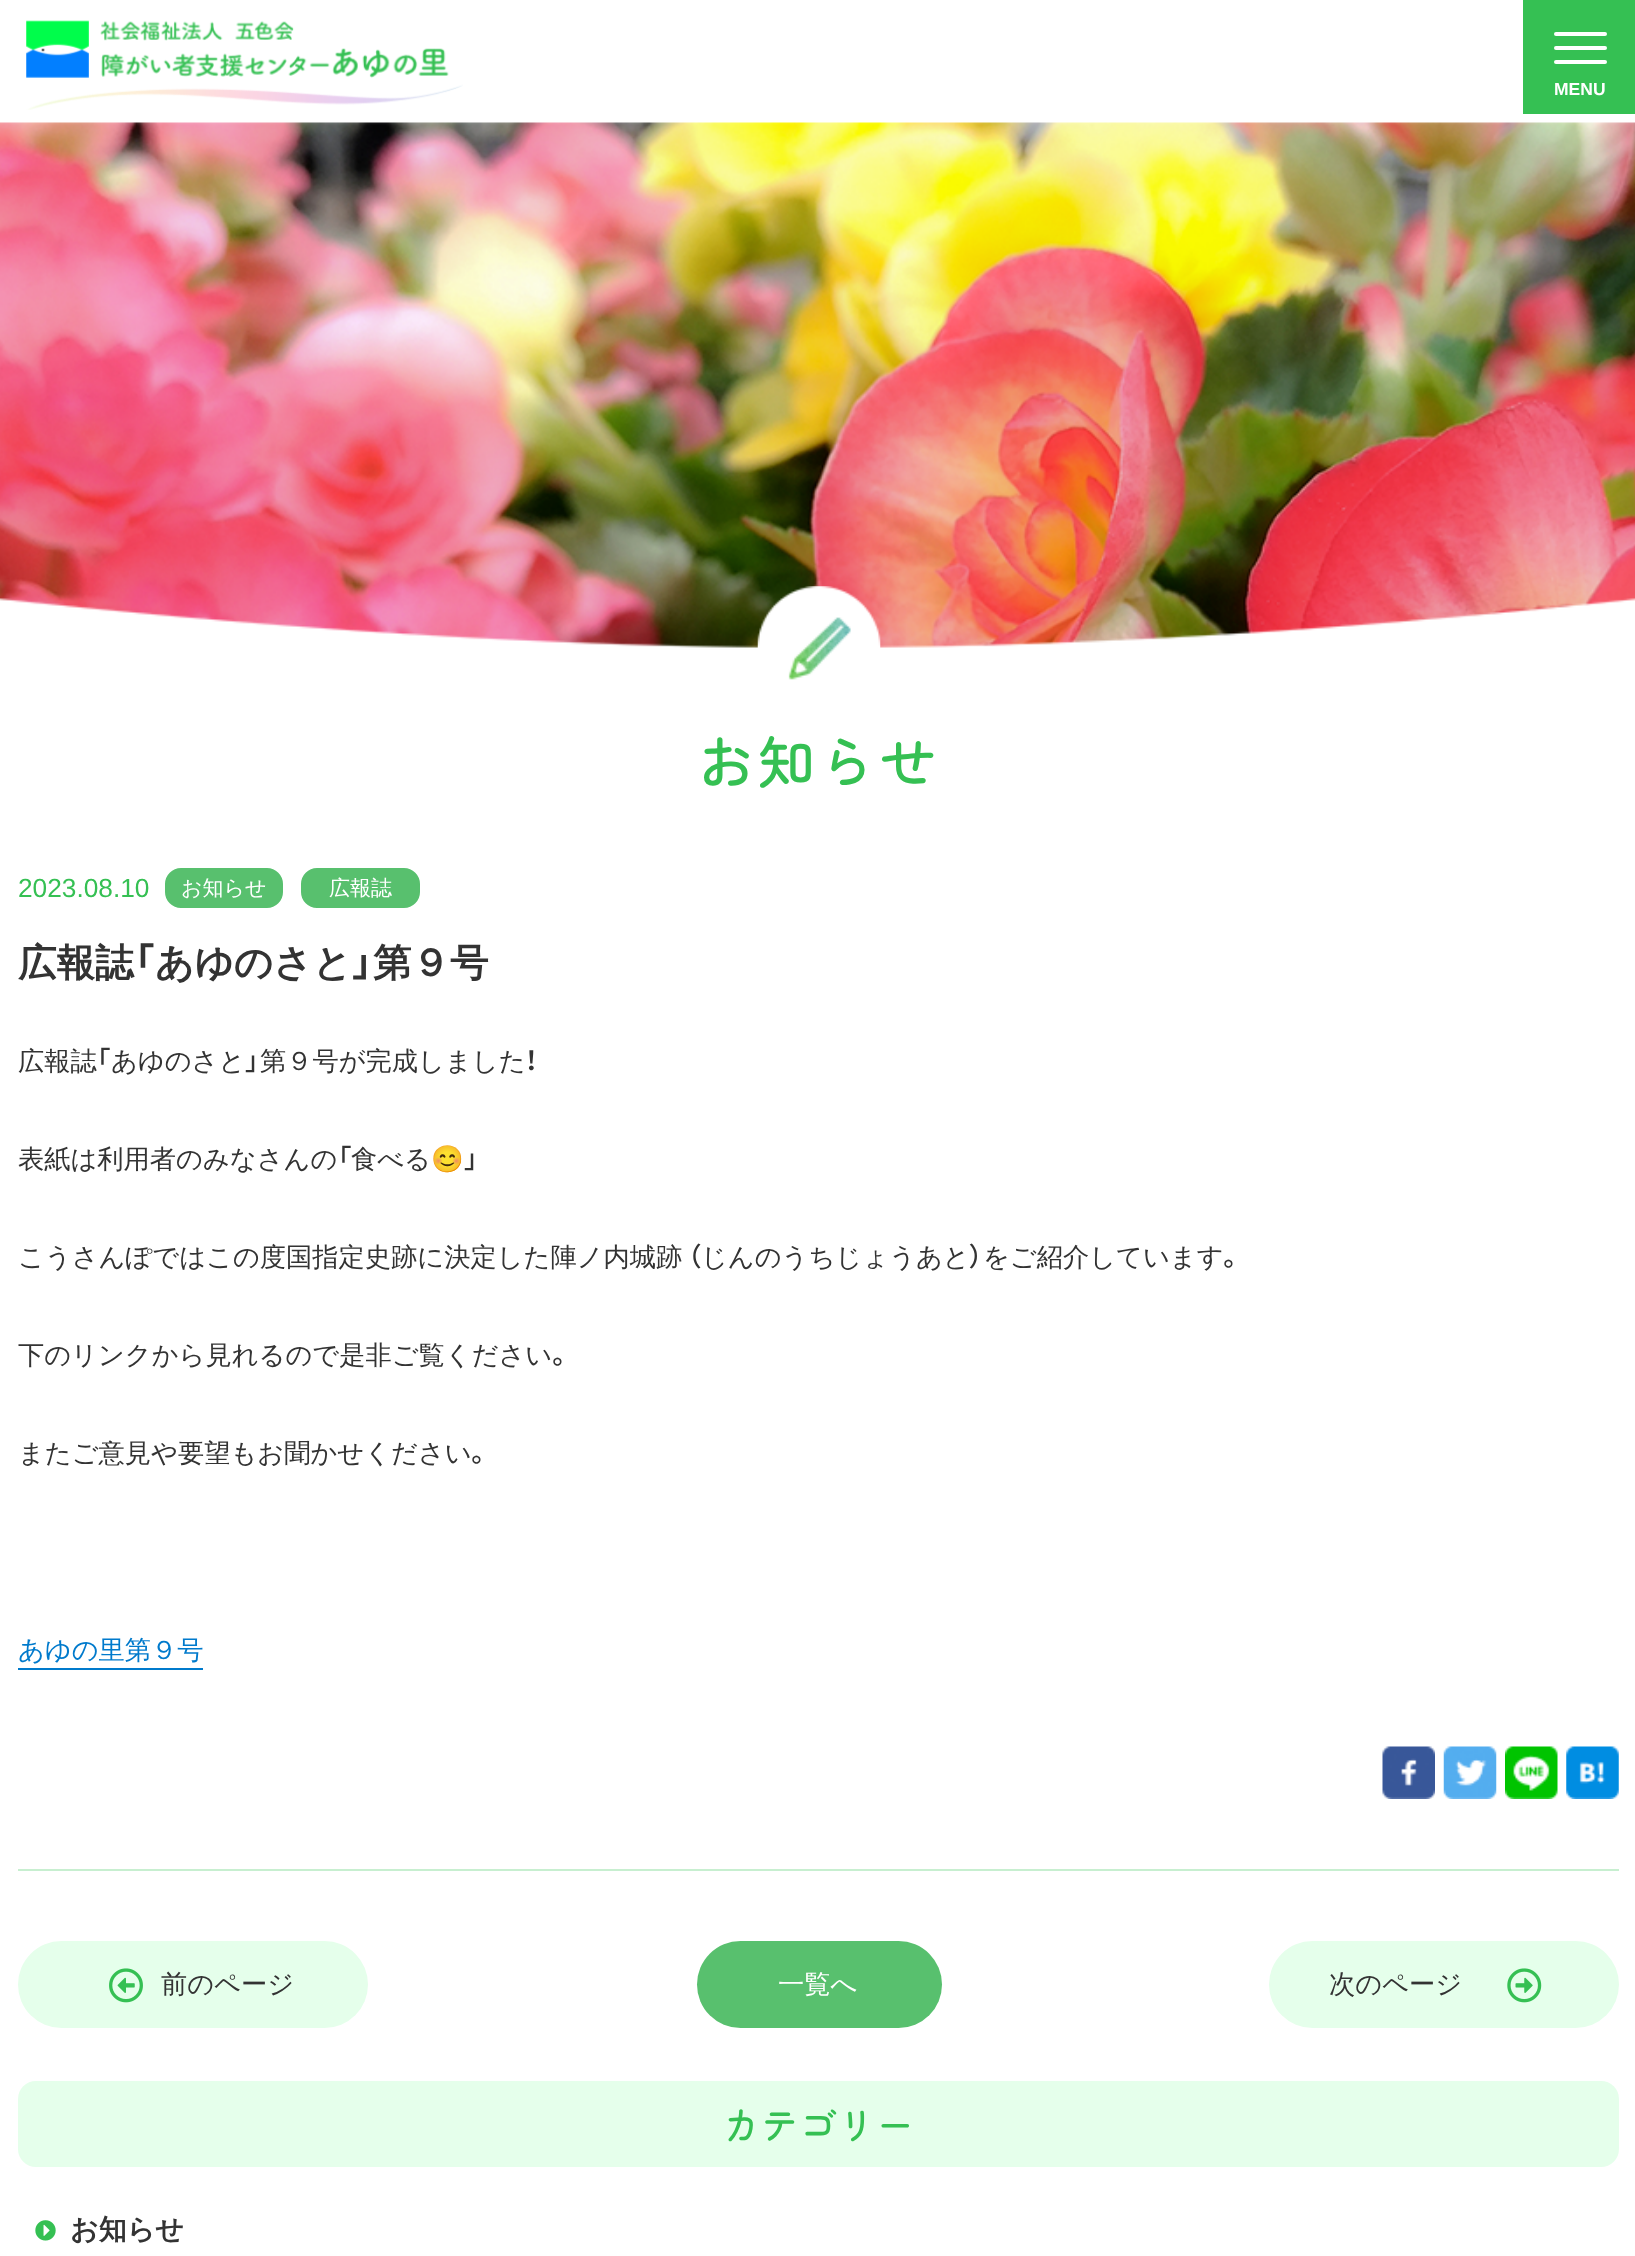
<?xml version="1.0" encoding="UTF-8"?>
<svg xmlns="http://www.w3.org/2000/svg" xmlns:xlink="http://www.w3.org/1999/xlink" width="1635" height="2256">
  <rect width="100%" height="100%" fill="#ffffff" />
  <image x="26" y="20" width="437" height="90" xlink:href="image1.png" />
  <rect x="1523" width="112" height="114" fill="#35c053" />
  <rect x="1554" y="46" width="53" height="4" rx="2" fill="#ffffff" />
  <rect x="1554" y="32" width="53" height="4" rx="2" fill="#ffffff" />
  <rect x="1554" y="60" width="53" height="4" rx="2" fill="#ffffff" />
  <image x="0" y="122" width="1635" height="526" xlink:href="image2.png" />
  <image x="757" y="586" width="124" height="94" xlink:href="image3.png" />
  <rect x="164" y="867" width="120" height="42" rx="17" fill="#58c06e" stroke="#ffffff" stroke-width="2" />
  <rect x="300" y="867" width="121" height="42" rx="17" fill="#58c06e" stroke="#ffffff" stroke-width="2" />
  <rect x="18" y="1668" width="185" height="2" fill="#007acc" />
  <image x="1382" y="1746" width="53" height="53" xlink:href="image4.png" />
  <image x="1443" y="1746" width="54" height="53" xlink:href="image5.png" />
  <image x="1505" y="1746" width="53" height="53" xlink:href="image6.png" />
  <image x="1566" y="1746" width="53" height="53" xlink:href="image7.png" />
  <rect x="18" y="1869" width="1601" height="2" fill="#c7efd0" />
  <rect x="18" y="1941" width="350" height="87" rx="43.5" fill="#e5ffeb" />
  <image x="109" y="1968" width="34" height="35" xlink:href="image8.png" />
  <rect x="697" y="1941" width="245" height="87" rx="43.5" fill="#58c06e" />
  <rect x="1269" y="1941" width="350" height="87" rx="43.5" fill="#e5ffeb" />
  <image x="1507" y="1968" width="35" height="35" xlink:href="image9.png" />
  <rect x="18" y="2081" width="1601" height="86" rx="18" fill="#e5ffeb" />
  <image x="35" y="2220" width="21" height="21" xlink:href="image10.png" />
  <text x="1554" y="95" style="font-family: Liberation Sans; font-size: 17.5px; font-weight: bold; fill: #ffffff">MENU</text>
  <text x="697" y="784" style="font-family: Zen Maru Gothic; font-size: 57.75px; font-weight: 500; letter-spacing: 3px; fill: #35c053">お知らせ</text>
  <text x="18" y="897" style="font-family: Liberation Sans; font-size: 26.25px; fill: #35c053">2023.08.10</text>
  <text x="181" y="895" style="font-family: WenQuanYi Zen Hei; font-size: 21px; font-weight: 500; fill: #ffffff">お知らせ</text>
  <text x="329" y="895" style="font-family: WenQuanYi Zen Hei; font-size: 21px; font-weight: 500; fill: #ffffff">広報誌</text>
  <text x="18" y="976" style="font-family: WenQuanYi Zen Hei; font-size: 38.5px; font-weight: bold; fill: #333333">広報誌</text>
  <text x="133" y="976" style="font-family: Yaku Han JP; font-size: 38.5px; font-weight: bold; fill: #333333">「</text>
  <text x="155" y="976" style="font-family: WenQuanYi Zen Hei; font-size: 38.5px; font-weight: bold; fill: #333333">あゆのさと</text>
  <text x="352" y="976" style="font-family: Yaku Han JP; font-size: 38.5px; font-weight: bold; fill: #333333">」</text>
  <text x="373" y="976" style="font-family: WenQuanYi Zen Hei; font-size: 38.5px; font-weight: bold; fill: #333333">第９号</text>
  <text x="18" y="1070" style="font-family: WenQuanYi Zen Hei; font-size: 26.25px; font-weight: 500; fill: #333333">広報誌</text>
  <text x="96" y="1070" style="font-family: Yaku Han JP; font-size: 26.25px; font-weight: 500; fill: #333333">「</text>
  <text x="111" y="1070" style="font-family: WenQuanYi Zen Hei; font-size: 26.25px; font-weight: 500; fill: #333333">あゆのさと</text>
  <text x="245" y="1070" style="font-family: Yaku Han JP; font-size: 26.25px; font-weight: 500; fill: #333333">」</text>
  <text x="260" y="1070" style="font-family: WenQuanYi Zen Hei; font-size: 26.25px; font-weight: 500; fill: #333333">第９号が完成しました</text>
  <text x="525" y="1070" style="font-family: Yaku Han JP; font-size: 26.25px; font-weight: 500; fill: #333333">！</text>
  <text x="18" y="1168" style="font-family: WenQuanYi Zen Hei; font-size: 26.25px; font-weight: 500; fill: #333333">表紙は利用者のみなさんの</text>
  <text x="337" y="1168" style="font-family: Yaku Han JP; font-size: 26.25px; font-weight: 500; fill: #333333">「</text>
  <text x="351" y="1168" style="font-family: WenQuanYi Zen Hei; font-size: 26.25px; font-weight: 500; fill: #333333">食べる</text>
  <text x="431" y="1168" style="font-family: Noto Color Emoji; font-size: 26.25px; fill: #333333">😊</text>
  <text x="464" y="1168" style="font-family: Yaku Han JP; font-size: 26.25px; font-weight: 500; fill: #333333">」</text>
  <text x="18" y="1266" style="font-family: WenQuanYi Zen Hei; font-size: 26.25px; font-weight: 500; fill: #333333">こうさんぽではこの度国指定史跡に決定した陣ノ内城跡</text>
  <text x="688" y="1266" style="font-family: Yaku Han JP; font-size: 26.25px; font-weight: 500; fill: #333333">（</text>
  <text x="701" y="1266" style="font-family: WenQuanYi Zen Hei; font-size: 26.25px; font-weight: 500; fill: #333333">じんのうちじょうあと</text>
  <text x="969" y="1266" style="font-family: Yaku Han JP; font-size: 26.25px; font-weight: 500; fill: #333333">）</text>
  <text x="983" y="1266" style="font-family: WenQuanYi Zen Hei; font-size: 26.25px; font-weight: 500; fill: #333333">をご紹介しています</text>
  <text x="1223" y="1266" style="font-family: Yaku Han JP; font-size: 26.25px; font-weight: 500; fill: #333333">。</text>
  <text x="18" y="1364" style="font-family: WenQuanYi Zen Hei; font-size: 26.25px; font-weight: 500; fill: #333333">下のリンクから見れるので是非ご覧ください</text>
  <text x="552" y="1364" style="font-family: Yaku Han JP; font-size: 26.25px; font-weight: 500; fill: #333333">。</text>
  <text x="18" y="1462" style="font-family: WenQuanYi Zen Hei; font-size: 26.25px; font-weight: 500; fill: #333333">またご意見や要望もお聞かせください</text>
  <text x="471" y="1462" style="font-family: Yaku Han JP; font-size: 26.25px; font-weight: 500; fill: #333333">。</text>
  <text x="18" y="1659" style="font-family: WenQuanYi Zen Hei; font-size: 26.25px; font-weight: 500; fill: #007acc">あゆの里第９号</text>
  <text x="161" y="1993" style="font-family: WenQuanYi Zen Hei; font-size: 26.25px; font-weight: 500; fill: #333333">前のページ</text>
  <text x="778" y="1993" style="font-family: WenQuanYi Zen Hei; font-size: 26.25px; font-weight: 500; fill: #ffffff">一覧へ</text>
  <text x="1329" y="1993" style="font-family: WenQuanYi Zen Hei; font-size: 26.25px; font-weight: 500; fill: #333333">次のページ</text>
  <text x="722" y="2140" style="font-family: Zen Maru Gothic; font-size: 38.5px; font-weight: 500; fill: #35c053">カテゴリー</text>
  <text x="70" y="2239" style="font-family: WenQuanYi Zen Hei; font-size: 28px; font-weight: bold; fill: #333333">お知らせ</text>
</svg>
